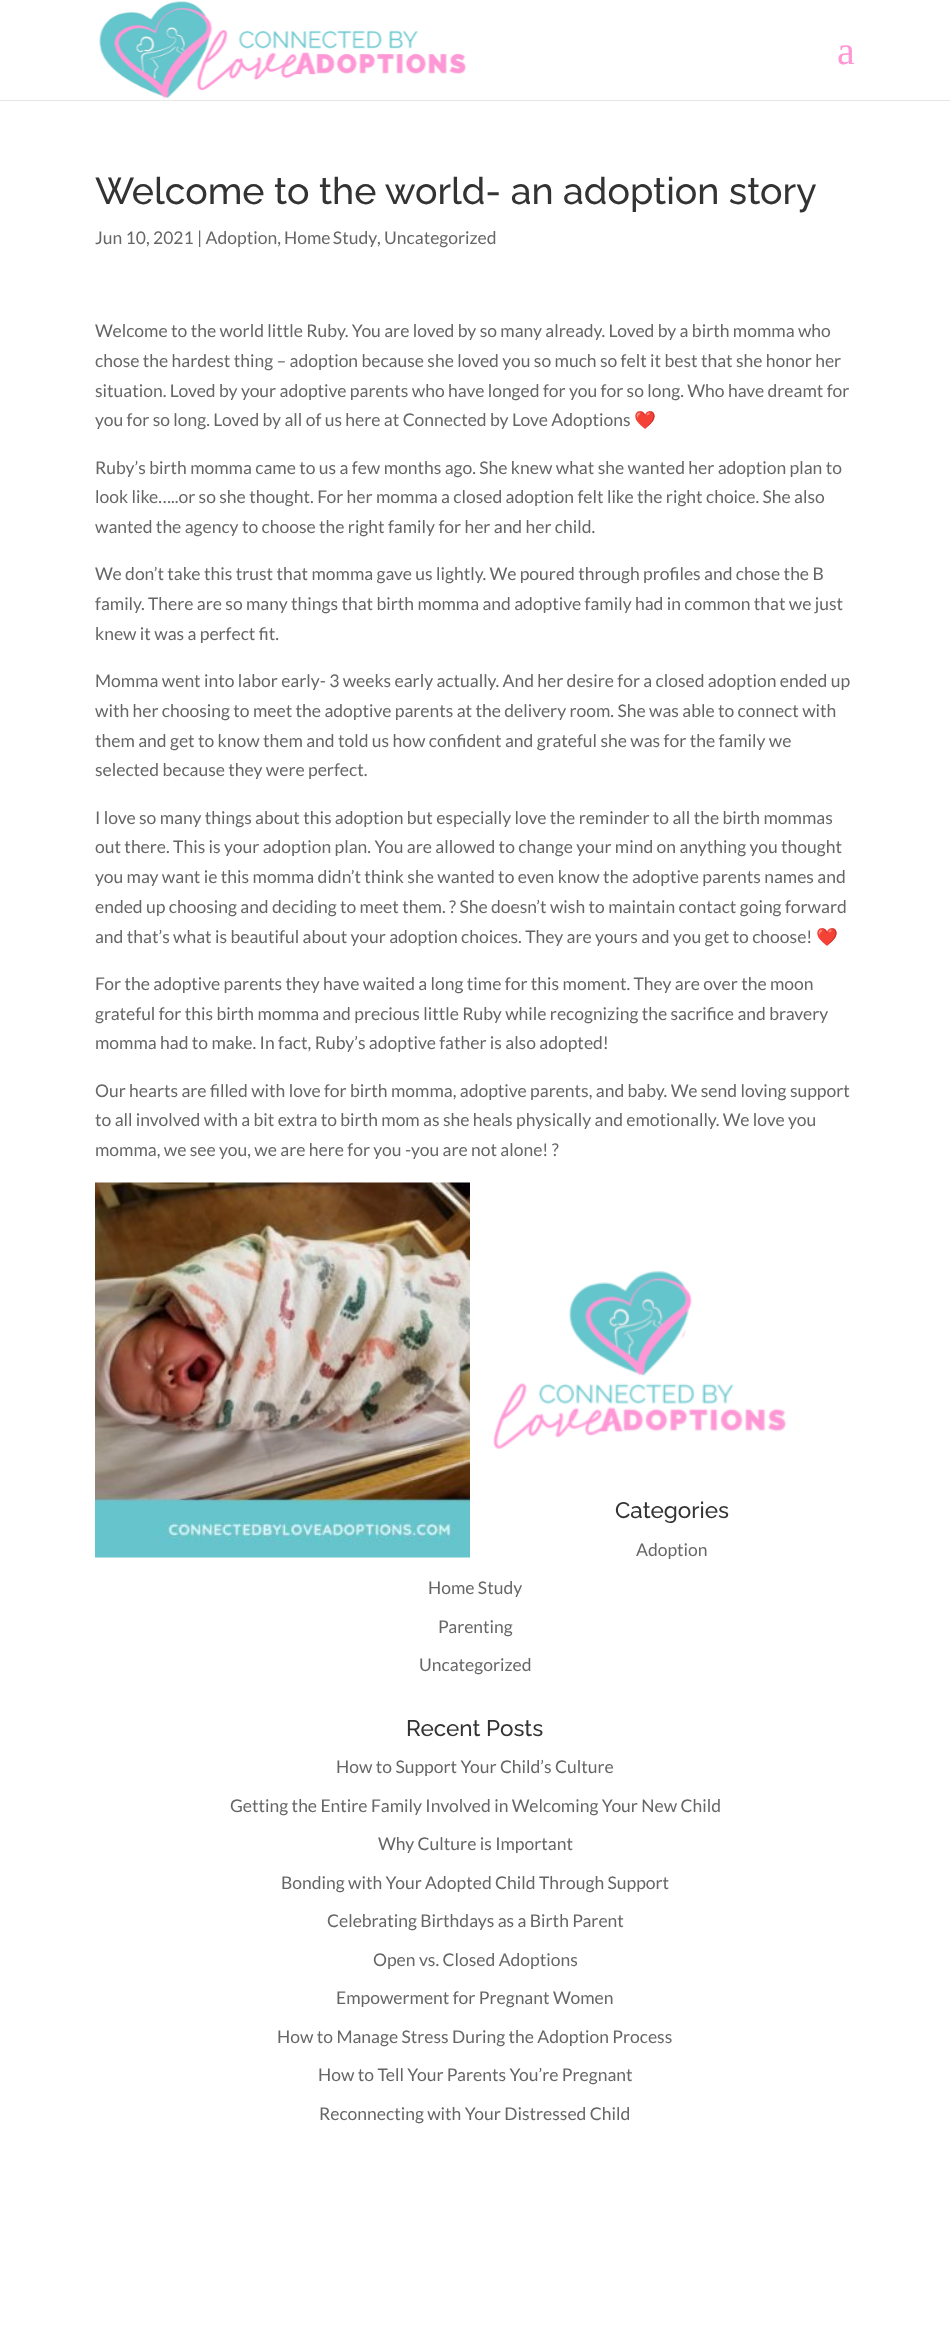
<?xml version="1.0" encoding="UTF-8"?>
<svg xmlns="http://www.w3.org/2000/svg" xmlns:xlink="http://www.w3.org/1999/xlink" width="950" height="2340">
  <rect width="100%" height="100%" fill="#ffffff" />
  <rect y="100" width="950" height="1" fill="#e6e6e6" />
  <image x="99" y="1" width="367" height="98" xlink:href="image1.png" />
  <image x="95" y="1182" width="375" height="376" xlink:href="image2.png" />
  <image x="493" y="1270" width="294" height="179" xlink:href="image3.png" />
  <text x="837" y="64" style="font-family: Liberation Serif; font-size: 40px; fill: #ff96d5">a</text>
  <text x="95" y="204" style="font-family: Raleway; font-size: 37.5px; font-weight: 500; fill: #333333">Welcome to the world- an adoption story</text>
  <text x="95" y="244" style="font-family: Lato; font-size: 17.5px; fill: #666666">Jun 10, 2021 | Adoption,</text>
  <text x="284" y="244" word-spacing="-1" style="font-family: Lato; font-size: 17.5px; fill: #666666">Home Study</text>
  <text x="377" y="244" style="font-family: Lato; font-size: 17.5px; fill: #666666">, Uncategorized</text>
  <text x="95" y="337" style="font-family: Lato; font-size: 17.5px; fill: #666666">Welcome to the world little Ruby. You are loved by so many already. Loved by a birth momma who</text>
  <text x="95" y="367" style="font-family: Lato; font-size: 17.5px; fill: #666666">chose the hardest thing – adoption because she loved you so much so felt it best that she honor her</text>
  <text x="95" y="397" style="font-family: Lato; font-size: 17.5px; fill: #666666">situation. Loved by your adoptive parents who have longed for you for so long. Who have dreamt for</text>
  <text x="95" y="426" style="font-family: Lato; font-size: 17.5px; fill: #666666">you for so long. Loved by all of us here at Connected by Love Adoptions</text>
  <text x="634" y="426" style="font-family: Noto Color Emoji; font-size: 17.5px; fill: #666666">❤️</text>
  <text x="95" y="474" style="font-family: Lato; font-size: 17.5px; fill: #666666">Ruby’s birth momma came to us a few months ago. She knew what she wanted her adoption plan to</text>
  <text x="95" y="503" style="font-family: Lato; font-size: 17.5px; fill: #666666">look like…..or so she thought. For her momma a closed adoption felt like the right choice. She also</text>
  <text x="95" y="533" style="font-family: Lato; font-size: 17.5px; fill: #666666">wanted the agency to choose the right family for her and her child.</text>
  <text x="95" y="580" style="font-family: Lato; font-size: 17.5px; fill: #666666">We don’t take this trust that momma gave us lightly. We poured through profiles and chose the B</text>
  <text x="95" y="610" style="font-family: Lato; font-size: 17.5px; fill: #666666">family. There are so many things that birth momma and adoptive family had in common that we just</text>
  <text x="95" y="640" style="font-family: Lato; font-size: 17.5px; fill: #666666">knew it was a perfect fit.</text>
  <text x="95" y="687" style="font-family: Lato; font-size: 17.5px; fill: #666666">Momma went into labor early- 3 weeks early actually. And her desire for a closed adoption ended up</text>
  <text x="95" y="717" style="font-family: Lato; font-size: 17.5px; fill: #666666">with her choosing to meet the adoptive parents at the delivery room. She was able to connect with</text>
  <text x="95" y="747" style="font-family: Lato; font-size: 17.5px; fill: #666666">them and get to know them and told us how confident and grateful she was for the family we</text>
  <text x="95" y="776" style="font-family: Lato; font-size: 17.5px; fill: #666666">selected because they were perfect.</text>
  <text x="95" y="824" style="font-family: Lato; font-size: 17.5px; fill: #666666">I love so many things about this adoption but especially love the reminder to all the birth mommas</text>
  <text x="95" y="853" style="font-family: Lato; font-size: 17.5px; fill: #666666">out there. This is your adoption plan. You are allowed to change your mind on anything you thought</text>
  <text x="95" y="883" style="font-family: Lato; font-size: 17.5px; fill: #666666">you may want ie this momma didn’t think she wanted to even know the adoptive parents names and</text>
  <text x="95" y="913" style="font-family: Lato; font-size: 17.5px; fill: #666666">ended up choosing and deciding to meet them. ? She doesn’t wish to maintain contact going forward</text>
  <text x="95" y="943" style="font-family: Lato; font-size: 17.5px; fill: #666666">and that’s what is beautiful about your adoption choices. They are yours and you get to choose!</text>
  <text x="816" y="943" style="font-family: Noto Color Emoji; font-size: 17.5px; fill: #666666">❤️</text>
  <text x="95" y="990" style="font-family: Lato; font-size: 17.5px; fill: #666666">For the adoptive parents they have waited a long time for this moment. They are over the moon</text>
  <text x="95" y="1020" style="font-family: Lato; font-size: 17.5px; fill: #666666">grateful for this birth momma and precious little Ruby while recognizing the sacrifice and bravery</text>
  <text x="95" y="1049" style="font-family: Lato; font-size: 17.5px; fill: #666666">momma had to make. In fact, Ruby’s adoptive father is also adopted!</text>
  <text x="95" y="1097" style="font-family: Lato; font-size: 17.5px; fill: #666666">Our hearts are filled with love for birth momma, adoptive parents, and baby. We send loving support</text>
  <text x="95" y="1126" style="font-family: Lato; font-size: 17.5px; fill: #666666">to all involved with a bit extra to birth mom as she heals physically and emotionally. We love you</text>
  <text x="95" y="1156" style="font-family: Lato; font-size: 17.5px; fill: #666666">momma, we see you, we are here for you -you are not alone! ?</text>
  <text x="615" y="1518" style="font-family: Raleway; font-size: 22.5px; font-weight: 500; fill: #333333">Categories</text>
  <text x="636" y="1556" style="font-family: Lato; font-size: 17.5px; fill: #666666">Adoption</text>
  <text x="428" y="1594" style="font-family: Lato; font-size: 17.5px; fill: #666666">Home Study</text>
  <text x="438" y="1633" style="font-family: Lato; font-size: 17.5px; fill: #666666">Parenting</text>
  <text x="419" y="1671" style="font-family: Lato; font-size: 17.5px; fill: #666666">Uncategorized</text>
  <text x="406" y="1736" style="font-family: Raleway; font-size: 22.5px; font-weight: 500; fill: #333333">Recent Posts</text>
  <text x="336" y="1773" style="font-family: Lato; font-size: 17.5px; fill: #666666">How to Support Your Child’s Culture</text>
  <text x="230" y="1812" style="font-family: Lato; font-size: 17.5px; fill: #666666">Getting the Entire Family Involved in Welcoming Your New Child</text>
  <text x="378" y="1850" style="font-family: Lato; font-size: 17.5px; fill: #666666">Why Culture is Important</text>
  <text x="281" y="1889" style="font-family: Lato; font-size: 17.5px; fill: #666666">Bonding with Your Adopted Child Through Support</text>
  <text x="327" y="1927" style="font-family: Lato; font-size: 17.5px; fill: #666666">Celebrating Birthdays as a Birth Parent</text>
  <text x="373" y="1966" style="font-family: Lato; font-size: 17.5px; fill: #666666">Open vs. Closed Adoptions</text>
  <text x="336" y="2004" style="font-family: Lato; font-size: 17.5px; fill: #666666">Empowerment for Pregnant Women</text>
  <text x="277" y="2043" style="font-family: Lato; font-size: 17.5px; fill: #666666">How to Manage Stress During the Adoption Process</text>
  <text x="318" y="2081" style="font-family: Lato; font-size: 17.5px; fill: #666666">How to Tell Your Parents You’re Pregnant</text>
  <text x="319" y="2120" style="font-family: Lato; font-size: 17.5px; fill: #666666">Reconnecting with Your Distressed Child</text>
</svg>
